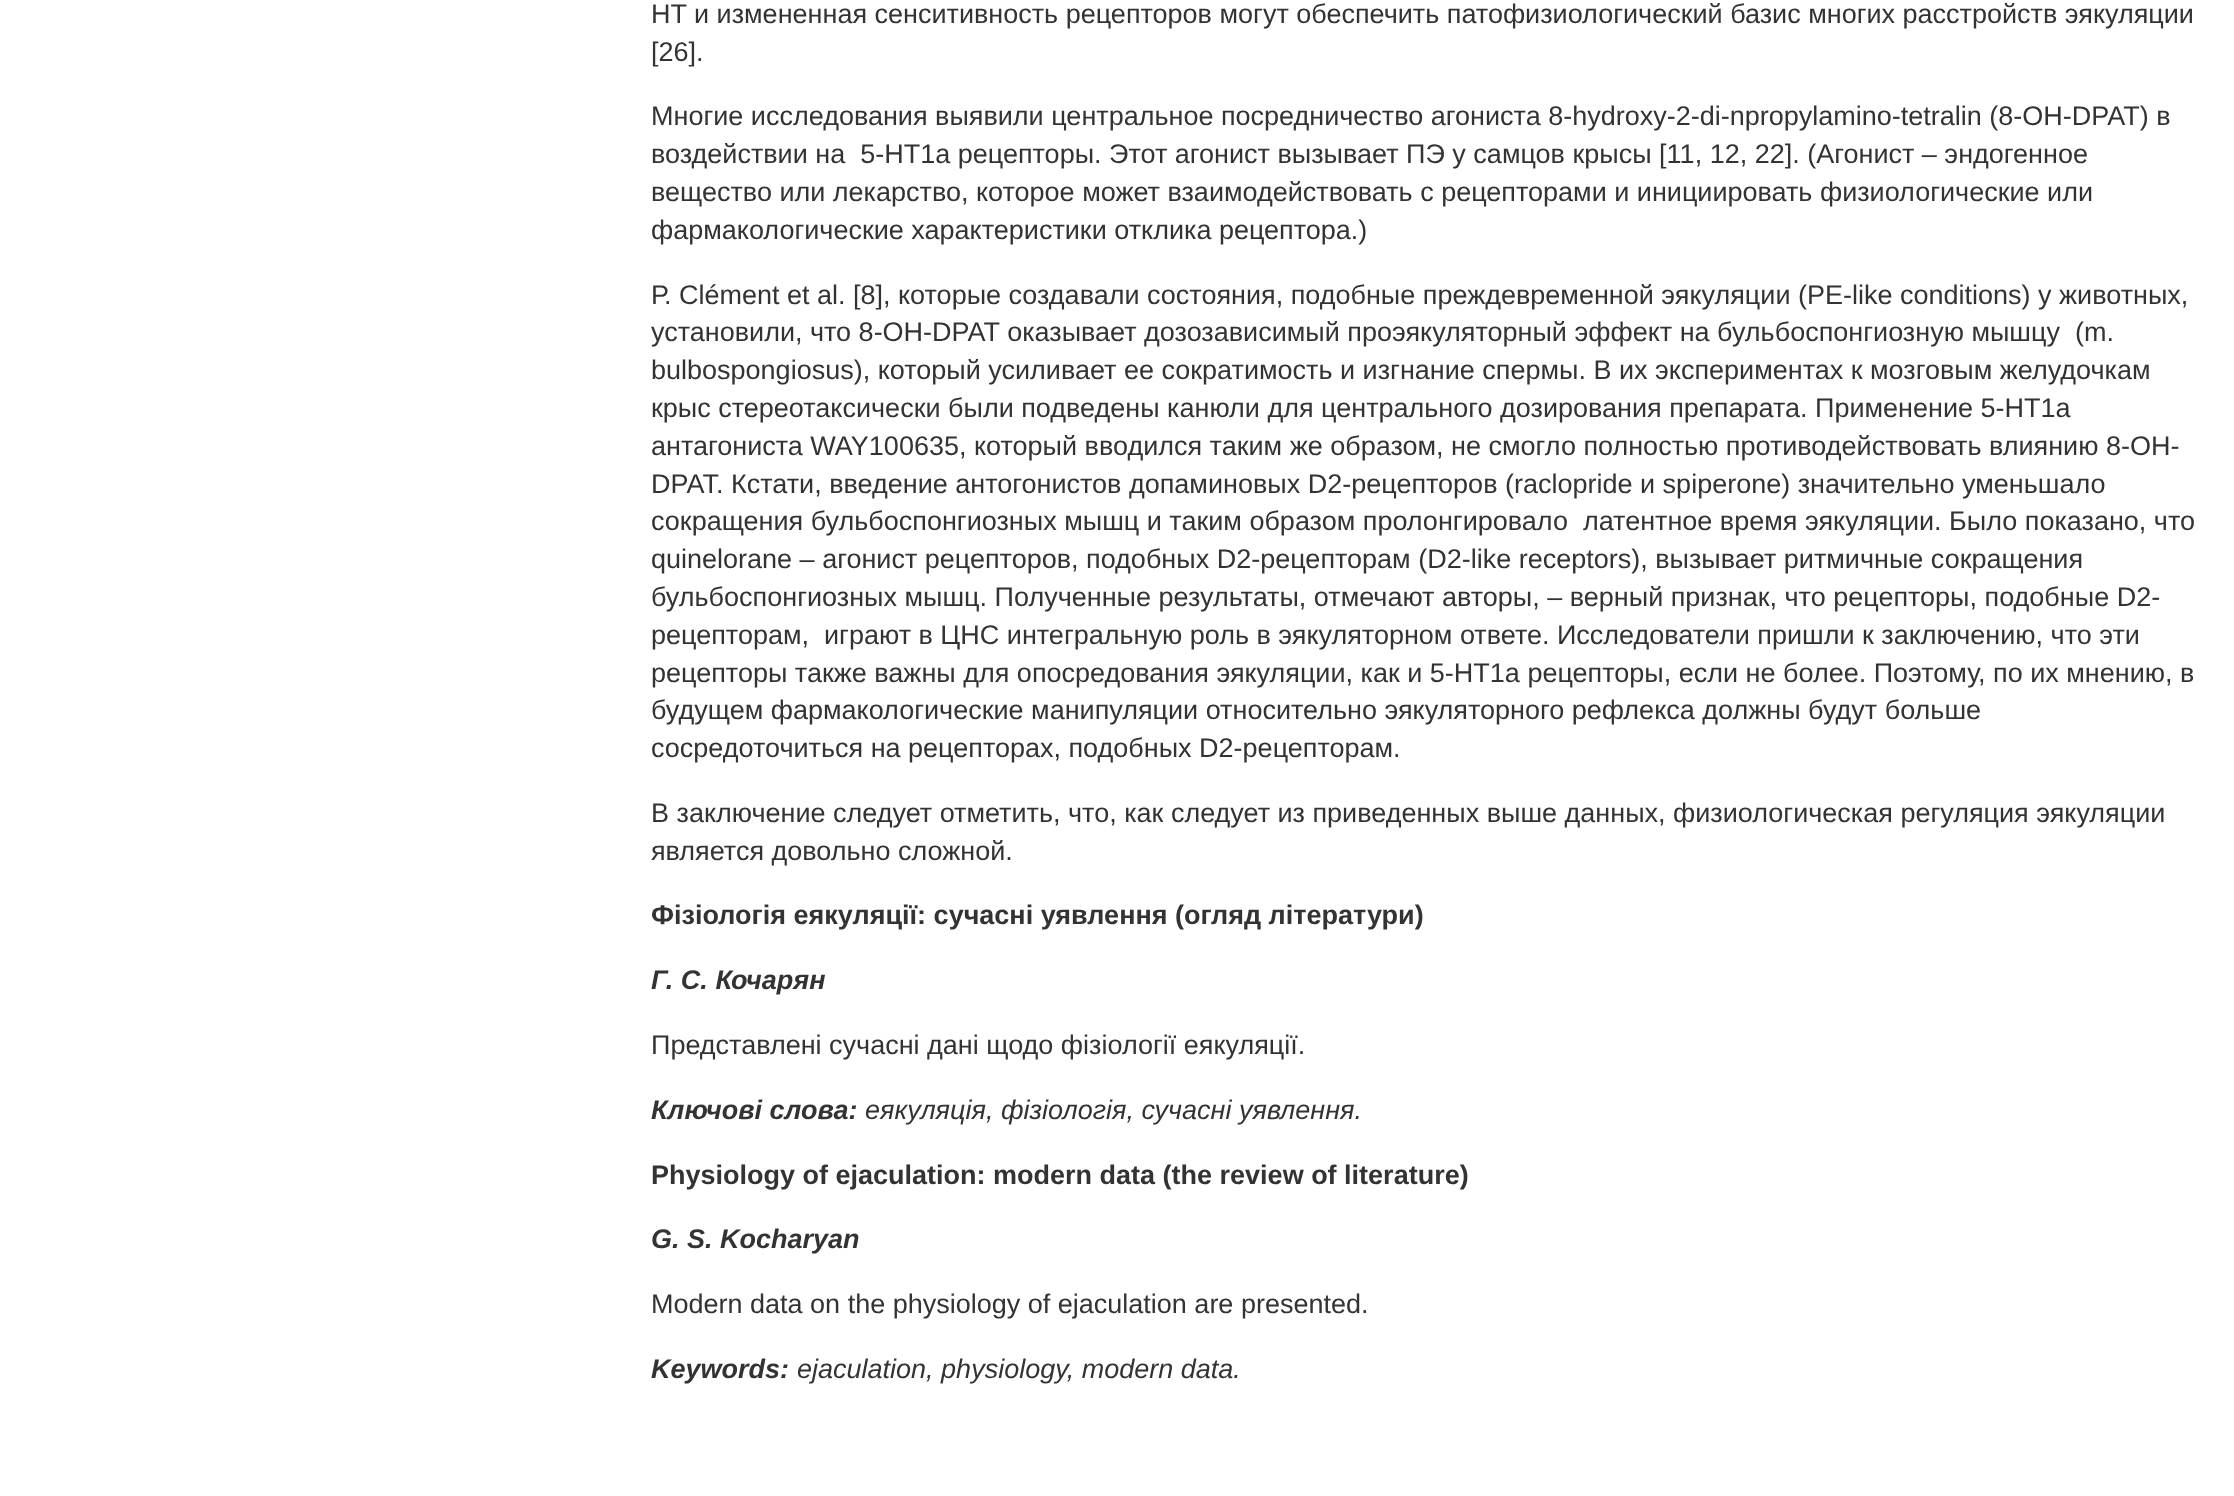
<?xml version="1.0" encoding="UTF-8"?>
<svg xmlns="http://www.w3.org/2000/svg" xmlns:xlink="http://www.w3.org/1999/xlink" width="2234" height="1496">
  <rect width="100%" height="100%" fill="#ffffff" />
  <text x="651" y="23" style="font-family: Liberation Sans; font-size: 27px; fill: #333333">HT и измененная сенситивность рецепторов могут обеспечить патофизиологический базис многих расстройств эякуляции</text>
  <text x="651" y="61" style="font-family: Liberation Sans; font-size: 27px; fill: #333333">[26].</text>
  <text x="651" y="125" style="font-family: Liberation Sans; font-size: 27px; fill: #333333">Многие исследования выявили центральное посредничество агониста 8-hydroxy-2-di-npropylamino-tetralin (8-OH-DPAT) в</text>
  <text x="651" y="163" style="font-family: Liberation Sans; font-size: 27px; fill: #333333" xml:space="preserve">воздействии на  5-HT1а рецепторы. Этот агонист вызывает ПЭ у самцов крысы [11, 12, 22]. (Агонист – эндогенное</text>
  <text x="651" y="201" style="font-family: Liberation Sans; font-size: 27px; fill: #333333">вещество или лекарство, которое может взаимодействовать с рецепторами и инициировать физиологические или</text>
  <text x="651" y="239" style="font-family: Liberation Sans; font-size: 27px; fill: #333333">фармакологические характеристики отклика рецептора.)</text>
  <text x="651" y="304" style="font-family: Liberation Sans; font-size: 27px; fill: #333333">Р. Clément et al. [8], которые создавали состояния, подобные преждевременной эякуляции (PE-like conditions) у животных,</text>
  <text x="651" y="341" style="font-family: Liberation Sans; font-size: 27px; fill: #333333" xml:space="preserve">установили, что 8-OH-DPAT оказывает дозозависимый проэякуляторный эффект на бульбоспонгиозную мышцу  (m.</text>
  <text x="651" y="379" style="font-family: Liberation Sans; font-size: 27px; fill: #333333">bulbospongiosus), который усиливает ее сократимость и изгнание спермы. В их экспериментах к мозговым желудочкам</text>
  <text x="651" y="417" style="font-family: Liberation Sans; font-size: 27px; fill: #333333">крыс стереотаксически были подведены канюли для центрального дозирования препарата. Применение 5-HT1а</text>
  <text x="651" y="455" style="font-family: Liberation Sans; font-size: 27px; fill: #333333">антагониста WAY100635, который вводился таким же образом, не смогло полностью противодействовать влиянию 8-OH-</text>
  <text x="651" y="493" style="font-family: Liberation Sans; font-size: 27px; fill: #333333">DPAT. Кстати, введение антогонистов допаминовых D2-рецепторов (raclopride и spiperone) значительно уменьшало</text>
  <text x="651" y="530" style="font-family: Liberation Sans; font-size: 27px; fill: #333333" xml:space="preserve">сокращения бульбоспонгиозных мышц и таким образом пролонгировало  латентное время эякуляции. Было показано, что</text>
  <text x="651" y="568" style="font-family: Liberation Sans; font-size: 27px; fill: #333333">quinelorane – агонист рецепторов, подобных D2-рецепторам (D2-like receptors), вызывает ритмичные сокращения</text>
  <text x="651" y="606" style="font-family: Liberation Sans; font-size: 27px; fill: #333333">бульбоспонгиозных мышц. Полученные результаты, отмечают авторы, – верный признак, что рецепторы, подобные D2-</text>
  <text x="651" y="644" style="font-family: Liberation Sans; font-size: 27px; fill: #333333" xml:space="preserve">рецепторам,  играют в ЦНС интегральную роль в эякуляторном ответе. Исследователи пришли к заключению, что эти</text>
  <text x="651" y="682" style="font-family: Liberation Sans; font-size: 27px; fill: #333333">рецепторы также важны для опосредования эякуляции, как и 5-HT1а рецепторы, если не более. Поэтому, по их мнению, в</text>
  <text x="651" y="719" style="font-family: Liberation Sans; font-size: 27px; fill: #333333">будущем фармакологические манипуляции относительно эякуляторного рефлекса должны будут больше</text>
  <text x="651" y="757" style="font-family: Liberation Sans; font-size: 27px; fill: #333333">сосредоточиться на рецепторах, подобных D2-рецепторам.</text>
  <text x="651" y="822" style="font-family: Liberation Sans; font-size: 27px; fill: #333333">В заключение следует отметить, что, как следует из приведенных выше данных, физиологическая регуляция эякуляции</text>
  <text x="651" y="860" style="font-family: Liberation Sans; font-size: 27px; fill: #333333">является довольно сложной.</text>
  <text x="651" y="924" style="font-family: Liberation Sans; font-size: 27px; font-weight: bold; fill: #333333">Фізіологія еякуляції: сучасні уявлення (огляд літератури)</text>
  <text x="651" y="989" style="font-family: Liberation Sans; font-size: 27px; font-weight: bold; font-style: italic; fill: #333333">Г. С. Кочарян</text>
  <text x="651" y="1054" style="font-family: Liberation Sans; font-size: 27px; fill: #333333">Представлені сучасні дані щодо фізіології еякуляції.</text>
  <text x="651" y="1119" style="font-family: Liberation Sans; font-size: 27px; font-weight: bold; font-style: italic; fill: #333333">Ключові слова:</text>
  <text x="865" y="1119" style="font-family: Liberation Sans; font-size: 27px; font-style: italic; fill: #333333">еякуляція, фізіологія, сучасні уявлення.</text>
  <text x="651" y="1184" style="font-family: Liberation Sans; font-size: 27px; font-weight: bold; fill: #333333">Physiology of ejaculation: modern data (the review of literature)</text>
  <text x="651" y="1248" style="font-family: Liberation Sans; font-size: 27px; font-weight: bold; font-style: italic; fill: #333333">G. S. Kocharyan</text>
  <text x="651" y="1313" style="font-family: Liberation Sans; font-size: 27px; fill: #333333">Мodern data on the physiology of ejaculation are presented.</text>
  <text x="651" y="1378" style="font-family: Liberation Sans; font-size: 27px; font-weight: bold; font-style: italic; fill: #333333">Keywords:</text>
  <text x="797" y="1378" style="font-family: Liberation Sans; font-size: 27px; font-style: italic; fill: #333333">ejaculation, physiology, modern data.</text>
</svg>
